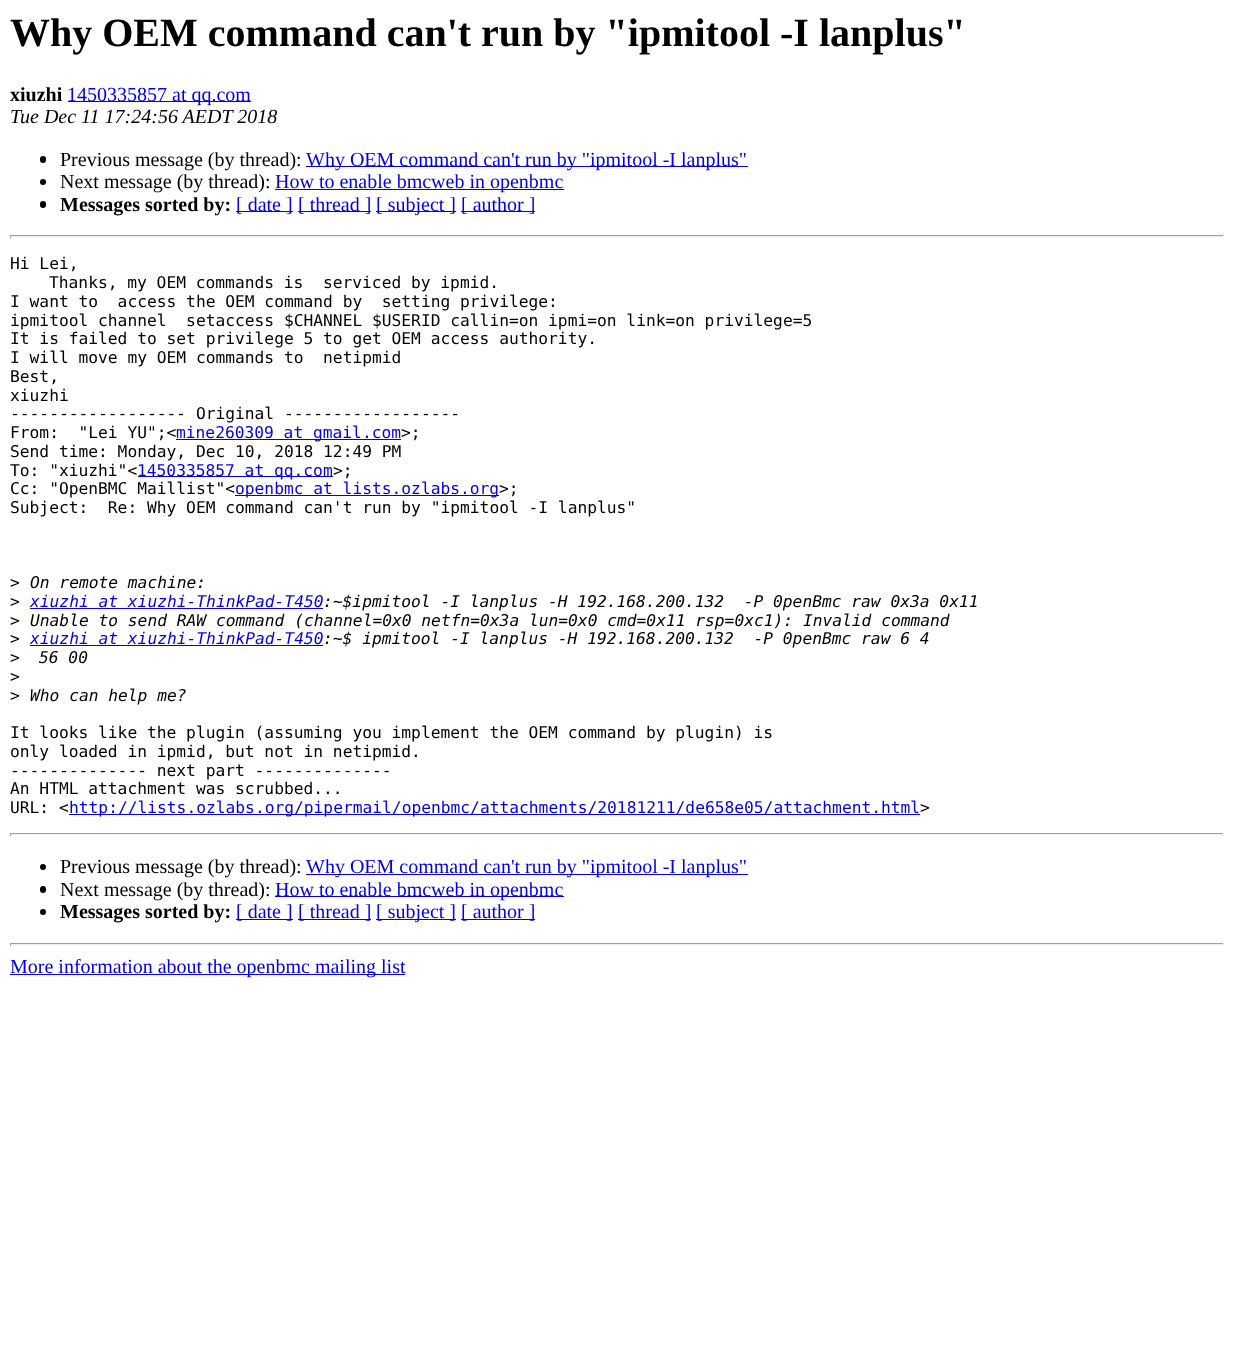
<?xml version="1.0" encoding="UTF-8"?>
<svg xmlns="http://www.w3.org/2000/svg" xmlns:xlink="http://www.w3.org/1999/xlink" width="1233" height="1352">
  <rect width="100%" height="100%" fill="#ffffff" />
  <rect x="68" y="101" width="183" height="1" fill="#0000ee" />
  <rect x="40" y="156" width="6" height="7" rx="3" fill="#000000" />
  <rect x="306" y="166" width="442" height="1" fill="#0000ee" />
  <circle cx="43" cy="182" r="3" fill="#000000" />
  <rect x="275" y="189" width="289" height="1" fill="#0000ee" />
  <rect x="40" y="201" width="6" height="7" rx="3" fill="#000000" />
  <rect x="236" y="211" width="57" height="1" fill="#0000ee" />
  <rect x="298" y="211" width="73" height="1" fill="#0000ee" />
  <rect x="376" y="211" width="80" height="1" fill="#0000ee" />
  <rect x="461" y="211" width="74" height="1" fill="#0000ee" />
  <rect x="10" y="235" width="1214" height="1" fill="#9f9f9f" />
  <rect x="1223" y="235" width="1" height="3" fill="#eeeeee" />
  <rect x="10" y="236" width="1214" height="1" fill="#eeeeee" />
  <rect x="10" y="235" width="1" height="3" fill="#9f9f9f" />
  <rect x="176" y="439" width="225" height="1" fill="#0000ee" />
  <rect x="138" y="476" width="195" height="1" fill="#0000ee" />
  <rect x="235" y="495" width="264" height="1" fill="#0000ee" />
  <rect x="30" y="608" width="293" height="1" fill="#0000ee" />
  <rect x="30" y="645" width="293" height="1" fill="#0000ee" />
  <rect x="69" y="814" width="851" height="1" fill="#0000ee" />
  <rect x="10" y="833" width="1214" height="1" fill="#9f9f9f" />
  <rect x="1223" y="833" width="1" height="3" fill="#eeeeee" />
  <rect x="10" y="834" width="1214" height="1" fill="#eeeeee" />
  <rect x="10" y="833" width="1" height="3" fill="#9f9f9f" />
  <circle cx="43" cy="867" r="3" fill="#000000" />
  <rect x="306" y="874" width="442" height="1" fill="#0000ee" />
  <rect x="40" y="886" width="6" height="7" rx="3" fill="#000000" />
  <rect x="275" y="896" width="289" height="1" fill="#0000ee" />
  <circle cx="43" cy="912" r="3" fill="#000000" />
  <rect x="236" y="919" width="57" height="1" fill="#0000ee" />
  <rect x="298" y="919" width="73" height="1" fill="#0000ee" />
  <rect x="376" y="919" width="80" height="1" fill="#0000ee" />
  <rect x="461" y="919" width="74" height="1" fill="#0000ee" />
  <rect x="10" y="943" width="1214" height="1" fill="#9f9f9f" />
  <rect x="1223" y="943" width="1" height="3" fill="#eeeeee" />
  <rect x="10" y="944" width="1214" height="1" fill="#eeeeee" />
  <rect x="10" y="943" width="1" height="3" fill="#9f9f9f" />
  <rect x="10" y="974" width="395" height="1" fill="#0000ee" />
  <text x="10" y="46" style="font-family: Liberation Serif; font-size: 40px; font-weight: bold; fill: #000000">Why OEM command can't run by "ipmitool -I lanplus"</text>
  <text x="10" y="101" style="font-family: Liberation Serif; font-size: 20px; font-weight: bold; fill: #000000">xiuzhi</text>
  <text x="67" y="101" style="font-family: Liberation Serif; font-size: 20px; fill: #0000ee">1450335857 at qq.com</text>
  <text x="10" y="123" style="font-family: Liberation Serif; font-size: 20px; font-style: italic; fill: #000000">Tue Dec 11 17:24:56 AEDT 2018</text>
  <text x="60" y="166" style="font-family: Liberation Serif; font-size: 20px; fill: #000000">Previous message (by thread):</text>
  <text x="306" y="166" style="font-family: Liberation Serif; font-size: 20px; fill: #0000ee">Why OEM command can't run by "ipmitool -I lanplus"</text>
  <text x="60" y="188" style="font-family: Liberation Serif; font-size: 20px; fill: #000000">Next message (by thread):</text>
  <text x="275" y="188" style="font-family: Liberation Serif; font-size: 20px; fill: #0000ee">How to enable bmcweb in openbmc</text>
  <text x="60" y="211" style="font-family: Liberation Serif; font-size: 20px; font-weight: bold; fill: #000000">Messages sorted by:</text>
  <text x="236" y="211" style="font-family: Liberation Serif; font-size: 20px; fill: #0000ee">[ date ]</text>
  <text x="298" y="211" style="font-family: Liberation Serif; font-size: 20px; fill: #0000ee">[ thread ]</text>
  <text x="376" y="211" style="font-family: Liberation Serif; font-size: 20px; fill: #0000ee">[ subject ]</text>
  <text x="461" y="211" style="font-family: Liberation Serif; font-size: 20px; fill: #0000ee">[ author ]</text>
  <text x="10" y="269" style="font-family: DejaVu Sans Mono; font-size: 16.25px; fill: #000000">Hi Lei,</text>
  <text x="49" y="288" style="font-family: DejaVu Sans Mono; font-size: 16.25px; fill: #000000" xml:space="preserve">Thanks, my OEM commands is  serviced by ipmid.</text>
  <text x="10" y="307" style="font-family: DejaVu Sans Mono; font-size: 16.25px; fill: #000000" xml:space="preserve">I want to  access the OEM command by  setting privilege:</text>
  <text x="10" y="326" style="font-family: DejaVu Sans Mono; font-size: 16.25px; fill: #000000" xml:space="preserve">ipmitool channel  setaccess $CHANNEL $USERID callin=on ipmi=on link=on privilege=5</text>
  <text x="10" y="344" style="font-family: DejaVu Sans Mono; font-size: 16.25px; fill: #000000">It is failed to set privilege 5 to get OEM access authority.</text>
  <text x="10" y="363" style="font-family: DejaVu Sans Mono; font-size: 16.25px; fill: #000000" xml:space="preserve">I will move my OEM commands to  netipmid</text>
  <text x="10" y="382" style="font-family: DejaVu Sans Mono; font-size: 16.25px; fill: #000000">Best,</text>
  <text x="10" y="401" style="font-family: DejaVu Sans Mono; font-size: 16.25px; fill: #000000">xiuzhi</text>
  <text x="10" y="419" style="font-family: DejaVu Sans Mono; font-size: 16.25px; fill: #000000">------------------ Original ------------------</text>
  <text x="10" y="438" style="font-family: DejaVu Sans Mono; font-size: 16.25px; fill: #000000" xml:space="preserve">From:  "Lei YU";&lt;</text>
  <text x="176" y="438" style="font-family: DejaVu Sans Mono; font-size: 16.25px; fill: #0000ee">mine260309 at gmail.com</text>
  <text x="401" y="438" style="font-family: DejaVu Sans Mono; font-size: 16.25px; fill: #000000">&gt;;</text>
  <text x="10" y="457" style="font-family: DejaVu Sans Mono; font-size: 16.25px; fill: #000000">Send time: Monday, Dec 10, 2018 12:49 PM</text>
  <text x="10" y="476" style="font-family: DejaVu Sans Mono; font-size: 16.25px; fill: #000000">To: "xiuzhi"&lt;</text>
  <text x="137" y="476" style="font-family: DejaVu Sans Mono; font-size: 16.25px; fill: #0000ee">1450335857 at qq.com</text>
  <text x="333" y="476" style="font-family: DejaVu Sans Mono; font-size: 16.25px; fill: #000000">&gt;;</text>
  <text x="10" y="494" style="font-family: DejaVu Sans Mono; font-size: 16.25px; fill: #000000">Cc: "OpenBMC Maillist"&lt;</text>
  <text x="235" y="494" style="font-family: DejaVu Sans Mono; font-size: 16.25px; fill: #0000ee">openbmc at lists.ozlabs.org</text>
  <text x="499" y="494" style="font-family: DejaVu Sans Mono; font-size: 16.25px; fill: #000000">&gt;;</text>
  <text x="10" y="513" style="font-family: DejaVu Sans Mono; font-size: 16.25px; fill: #000000" xml:space="preserve">Subject:  Re: Why OEM command can't run by "ipmitool -I lanplus"</text>
  <text x="10" y="588" style="font-family: DejaVu Sans Mono; font-size: 16.25px; fill: #000000">&gt;</text>
  <text x="30" y="588" style="font-family: DejaVu Sans Mono; font-size: 16.25px; font-style: italic; fill: #000000">On remote machine:</text>
  <text x="10" y="607" style="font-family: DejaVu Sans Mono; font-size: 16.25px; fill: #000000">&gt;</text>
  <text x="30" y="607" style="font-family: DejaVu Sans Mono; font-size: 16.25px; font-style: italic; fill: #0000ee">xiuzhi at xiuzhi-ThinkPad-T450</text>
  <text x="323" y="607" style="font-family: DejaVu Sans Mono; font-size: 16.25px; font-style: italic; fill: #000000" xml:space="preserve">:~$ipmitool -I lanplus -H 192.168.200.132  -P 0penBmc raw 0x3a 0x11</text>
  <text x="10" y="626" style="font-family: DejaVu Sans Mono; font-size: 16.25px; fill: #000000">&gt;</text>
  <text x="30" y="626" style="font-family: DejaVu Sans Mono; font-size: 16.25px; font-style: italic; fill: #000000">Unable to send RAW command (channel=0x0 netfn=0x3a lun=0x0 cmd=0x11 rsp=0xc1): Invalid command</text>
  <text x="10" y="644" style="font-family: DejaVu Sans Mono; font-size: 16.25px; fill: #000000">&gt;</text>
  <text x="30" y="644" style="font-family: DejaVu Sans Mono; font-size: 16.25px; font-style: italic; fill: #0000ee">xiuzhi at xiuzhi-ThinkPad-T450</text>
  <text x="323" y="644" style="font-family: DejaVu Sans Mono; font-size: 16.25px; font-style: italic; fill: #000000" xml:space="preserve">:~$ ipmitool -I lanplus -H 192.168.200.132  -P 0penBmc raw 6 4</text>
  <text x="10" y="663" style="font-family: DejaVu Sans Mono; font-size: 16.25px; fill: #000000">&gt;</text>
  <text x="39" y="663" style="font-family: DejaVu Sans Mono; font-size: 16.25px; font-style: italic; fill: #000000">56 00</text>
  <text x="10" y="682" style="font-family: DejaVu Sans Mono; font-size: 16.25px; fill: #000000">&gt;</text>
  <text x="10" y="701" style="font-family: DejaVu Sans Mono; font-size: 16.25px; fill: #000000">&gt;</text>
  <text x="30" y="701" style="font-family: DejaVu Sans Mono; font-size: 16.25px; font-style: italic; fill: #000000">Who can help me?</text>
  <text x="10" y="738" style="font-family: DejaVu Sans Mono; font-size: 16.25px; fill: #000000">It looks like the plugin (assuming you implement the OEM command by plugin) is</text>
  <text x="10" y="757" style="font-family: DejaVu Sans Mono; font-size: 16.25px; fill: #000000">only loaded in ipmid, but not in netipmid.</text>
  <text x="10" y="776" style="font-family: DejaVu Sans Mono; font-size: 16.25px; fill: #000000">-------------- next part --------------</text>
  <text x="10" y="794" style="font-family: DejaVu Sans Mono; font-size: 16.25px; fill: #000000">An HTML attachment was scrubbed...</text>
  <text x="10" y="813" style="font-family: DejaVu Sans Mono; font-size: 16.25px; fill: #000000">URL: &lt;</text>
  <text x="69" y="813" style="font-family: DejaVu Sans Mono; font-size: 16.25px; fill: #0000ee">http://lists.ozlabs.org/pipermail/openbmc/attachments/20181211/de658e05/attachment.html</text>
  <text x="920" y="813" style="font-family: DejaVu Sans Mono; font-size: 16.25px; fill: #000000">&gt;</text>
  <text x="60" y="873" style="font-family: Liberation Serif; font-size: 20px; fill: #000000">Previous message (by thread):</text>
  <text x="306" y="873" style="font-family: Liberation Serif; font-size: 20px; fill: #0000ee">Why OEM command can't run by "ipmitool -I lanplus"</text>
  <text x="60" y="896" style="font-family: Liberation Serif; font-size: 20px; fill: #000000">Next message (by thread):</text>
  <text x="275" y="896" style="font-family: Liberation Serif; font-size: 20px; fill: #0000ee">How to enable bmcweb in openbmc</text>
  <text x="60" y="918" style="font-family: Liberation Serif; font-size: 20px; font-weight: bold; fill: #000000">Messages sorted by:</text>
  <text x="236" y="918" style="font-family: Liberation Serif; font-size: 20px; fill: #0000ee">[ date ]</text>
  <text x="298" y="918" style="font-family: Liberation Serif; font-size: 20px; fill: #0000ee">[ thread ]</text>
  <text x="376" y="918" style="font-family: Liberation Serif; font-size: 20px; fill: #0000ee">[ subject ]</text>
  <text x="461" y="918" style="font-family: Liberation Serif; font-size: 20px; fill: #0000ee">[ author ]</text>
  <text x="10" y="973" style="font-family: Liberation Serif; font-size: 20px; fill: #0000ee">More information about the openbmc mailing list</text>
</svg>
